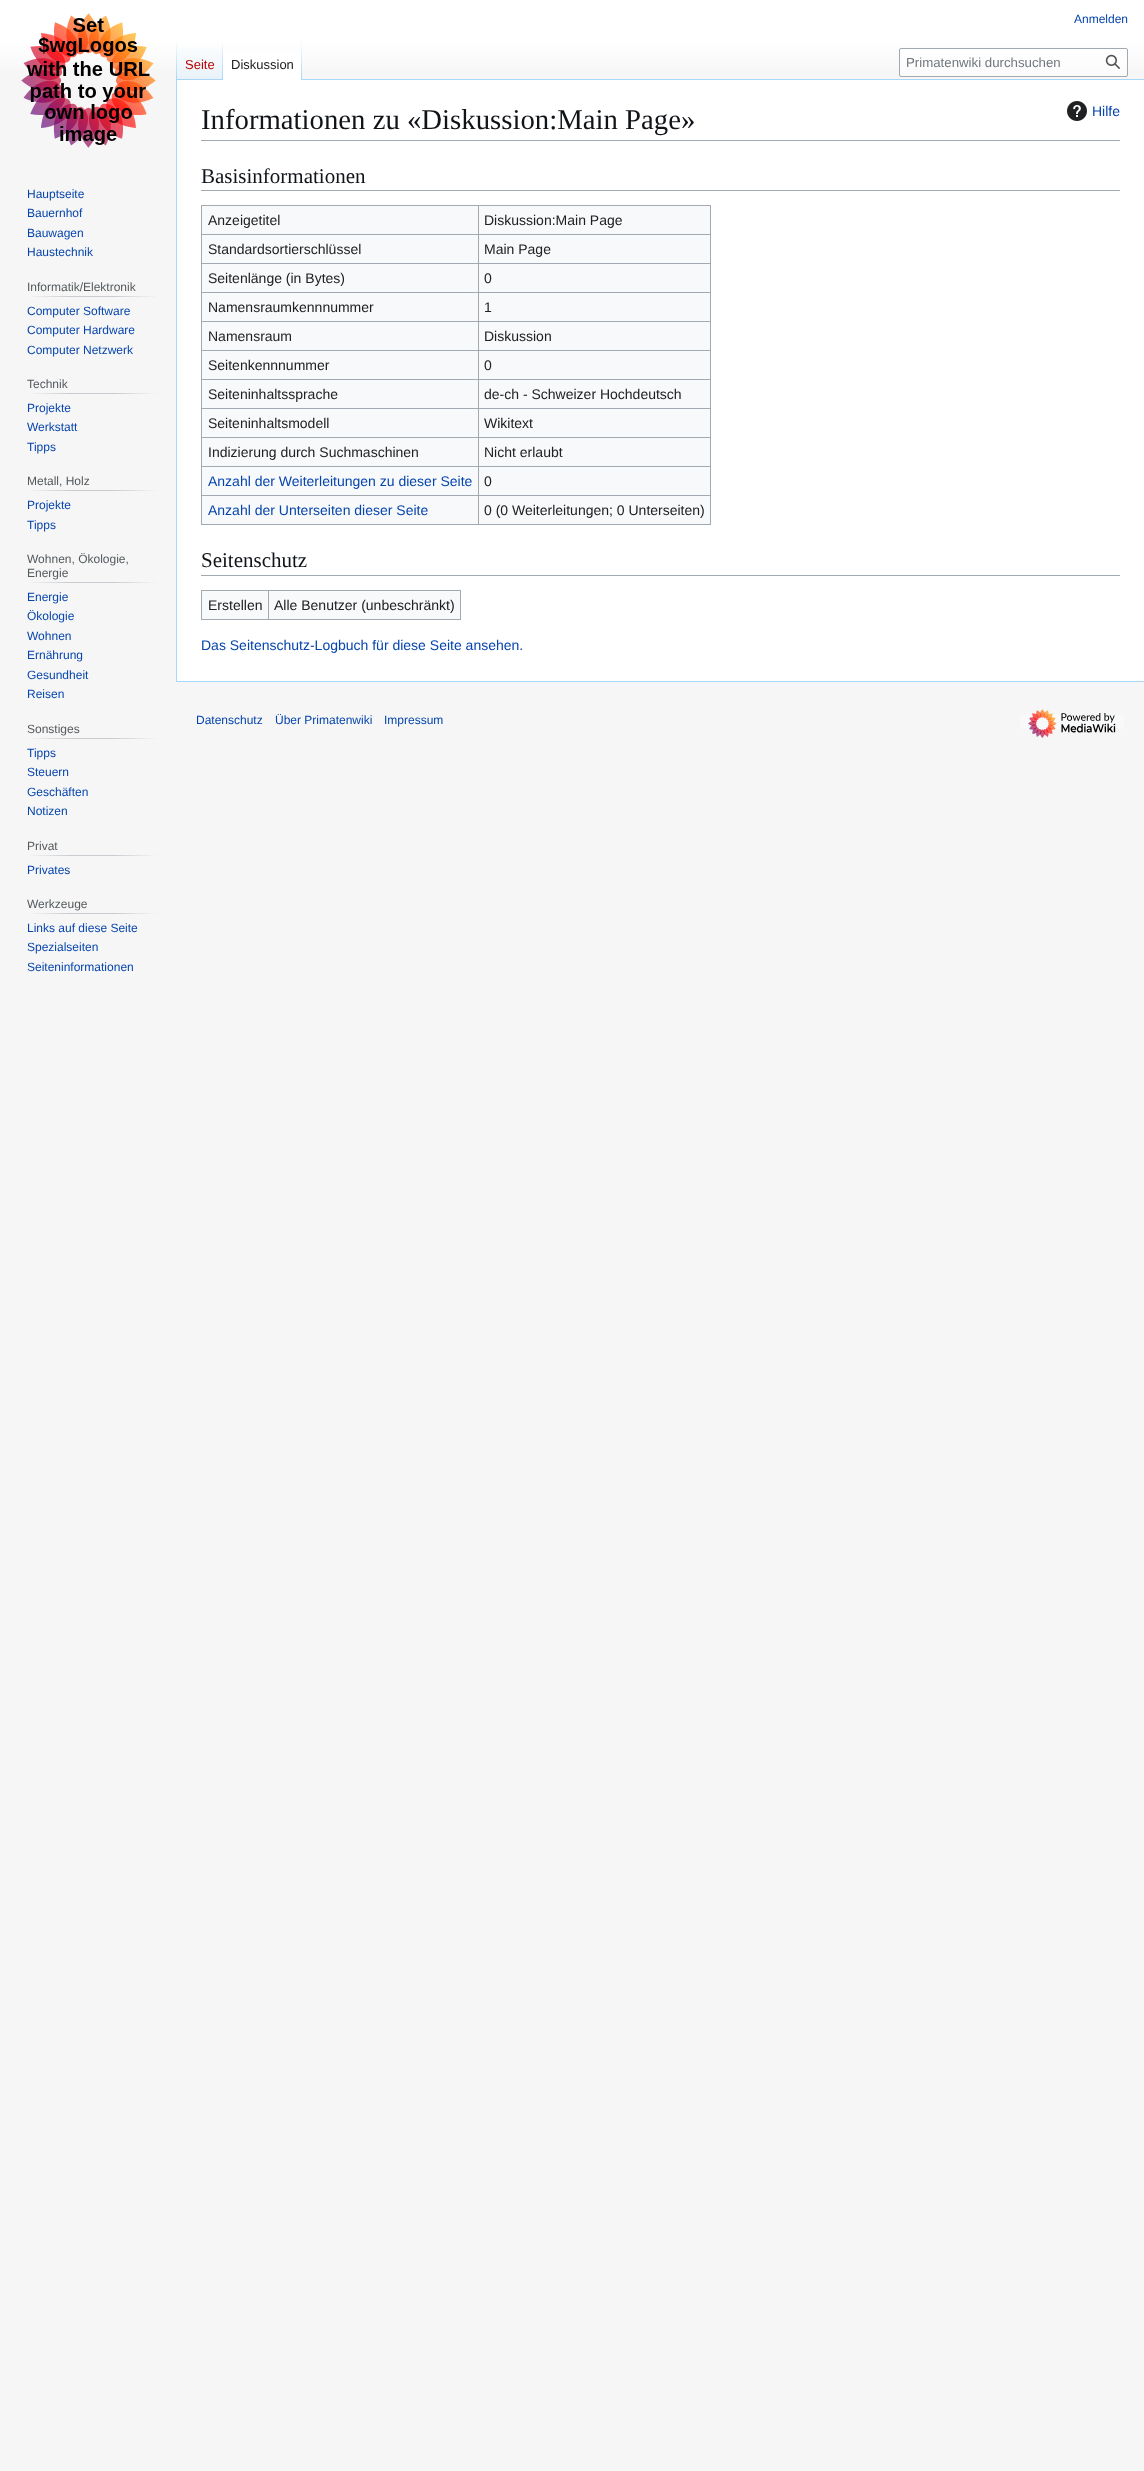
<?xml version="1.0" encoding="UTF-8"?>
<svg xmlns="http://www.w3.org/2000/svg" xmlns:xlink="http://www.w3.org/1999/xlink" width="1144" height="2471">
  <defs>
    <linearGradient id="g1" gradientUnits="userSpaceOnUse" x1="572" y1="0" x2="572" y2="80"><stop offset="0.5" stop-color="#ffffff" /><stop offset="1" stop-color="#f6f6f6" /></linearGradient>
    <linearGradient id="g2" gradientUnits="userSpaceOnUse" x1="177" y1="40" x2="177" y2="80"><stop offset="0" stop-color="#a7d7f9" stop-opacity="0" /><stop offset="1" stop-color="#a7d7f9" /></linearGradient>
    <linearGradient id="g3" gradientUnits="userSpaceOnUse" x1="200" y1="80" x2="200" y2="40"><stop offset="0" stop-color="#77c1f6" /><stop offset="0.03" stop-color="#e8f2f8" /><stop offset="1" stop-color="#ffffff" /></linearGradient>
    <linearGradient id="g4" gradientUnits="userSpaceOnUse" x1="223" y1="40" x2="223" y2="80"><stop offset="0" stop-color="#a7d7f9" stop-opacity="0" /><stop offset="1" stop-color="#a7d7f9" /></linearGradient>
    <linearGradient id="g5" gradientUnits="userSpaceOnUse" x1="302" y1="40" x2="302" y2="80"><stop offset="0" stop-color="#ffffff" /><stop offset="1" stop-color="#a7d7f9" /></linearGradient>
    <linearGradient id="g6" gradientUnits="userSpaceOnUse" x1="27" y1="297" x2="158" y2="297"><stop offset="0" stop-color="#f6f6f6" /><stop offset="0.33" stop-color="#c8ccd1" /><stop offset="0.66" stop-color="#c8ccd1" /><stop offset="1" stop-color="#f6f6f6" /></linearGradient>
    <linearGradient id="g7" gradientUnits="userSpaceOnUse" x1="27" y1="394" x2="158" y2="394"><stop offset="0" stop-color="#f6f6f6" /><stop offset="0.33" stop-color="#c8ccd1" /><stop offset="0.66" stop-color="#c8ccd1" /><stop offset="1" stop-color="#f6f6f6" /></linearGradient>
    <linearGradient id="g8" gradientUnits="userSpaceOnUse" x1="27" y1="491" x2="158" y2="491"><stop offset="0" stop-color="#f6f6f6" /><stop offset="0.33" stop-color="#c8ccd1" /><stop offset="0.66" stop-color="#c8ccd1" /><stop offset="1" stop-color="#f6f6f6" /></linearGradient>
    <linearGradient id="g9" gradientUnits="userSpaceOnUse" x1="27" y1="583" x2="158" y2="583"><stop offset="0" stop-color="#f6f6f6" /><stop offset="0.33" stop-color="#c8ccd1" /><stop offset="0.66" stop-color="#c8ccd1" /><stop offset="1" stop-color="#f6f6f6" /></linearGradient>
    <linearGradient id="g10" gradientUnits="userSpaceOnUse" x1="27" y1="739" x2="158" y2="739"><stop offset="0" stop-color="#f6f6f6" /><stop offset="0.33" stop-color="#c8ccd1" /><stop offset="0.66" stop-color="#c8ccd1" /><stop offset="1" stop-color="#f6f6f6" /></linearGradient>
    <linearGradient id="g11" gradientUnits="userSpaceOnUse" x1="27" y1="856" x2="158" y2="856"><stop offset="0" stop-color="#f6f6f6" /><stop offset="0.33" stop-color="#c8ccd1" /><stop offset="0.66" stop-color="#c8ccd1" /><stop offset="1" stop-color="#f6f6f6" /></linearGradient>
    <linearGradient id="g12" gradientUnits="userSpaceOnUse" x1="27" y1="914" x2="158" y2="914"><stop offset="0" stop-color="#f6f6f6" /><stop offset="0.33" stop-color="#c8ccd1" /><stop offset="0.66" stop-color="#c8ccd1" /><stop offset="1" stop-color="#f6f6f6" /></linearGradient>
  </defs>
  <rect width="100%" height="100%" fill="#f6f6f6" />
  <rect width="1144" height="69" fill="url(#g1)" />
  <rect x="176" y="681" width="968" height="1" fill="#a7d7f9" />
  <rect x="176" y="79" width="1" height="603" fill="#a7d7f9" />
  <rect x="176" y="40" width="1" height="40" fill="url(#g2)" />
  <rect x="177" y="46" width="46" height="34" fill="url(#g3)" />
  <rect x="222" y="40" width="1" height="40" fill="url(#g4)" />
  <rect x="223" y="51" width="78" height="29" fill="#ffffff" />
  <rect x="301" y="40" width="1" height="40" fill="url(#g5)" />
  <rect x="899.5" y="48.5" width="228" height="28" rx="1.5" fill="#ffffff" fill-opacity="0.5" stroke="#a2a9b1" />
  <image x="1105" y="54" width="15" height="15" xlink:href="image1.png" />
  <image x="21" y="13" width="135" height="135" xlink:href="image2.png" />
  <rect x="27" y="296" width="131" height="1" fill="url(#g6)" />
  <rect x="27" y="393" width="131" height="1" fill="url(#g7)" />
  <rect x="27" y="490" width="131" height="1" fill="url(#g8)" />
  <rect x="27" y="582" width="131" height="1" fill="url(#g9)" />
  <rect x="27" y="738" width="131" height="1" fill="url(#g10)" />
  <rect x="27" y="855" width="131" height="1" fill="url(#g11)" />
  <rect x="27" y="913" width="131" height="1" fill="url(#g12)" />
  <rect x="177" y="80" width="967" height="601" fill="#ffffff" />
  <rect x="302" y="79" width="842" height="1" fill="#a7d7f9" />
  <rect x="201" y="140" width="919" height="1" fill="#a2a9b1" />
  <image x="1067" y="101" width="20" height="20" xlink:href="image3.png" />
  <rect x="201" y="190" width="919" height="1" fill="#a2a9b1" />
  <rect x="202" y="206" width="508" height="318" fill="#f8f9fa" />
  <rect x="201" y="205" width="510" height="1" fill="#a2a9b1" />
  <rect x="710" y="205" width="1" height="320" fill="#a2a9b1" />
  <rect x="201" y="524" width="510" height="1" fill="#a2a9b1" />
  <rect x="201" y="205" width="1" height="320" fill="#a2a9b1" />
  <rect x="478" y="234" width="233" height="1" fill="#a2a9b1" />
  <rect x="478" y="263" width="233" height="1" fill="#a2a9b1" />
  <rect x="478" y="292" width="233" height="1" fill="#a2a9b1" />
  <rect x="478" y="321" width="233" height="1" fill="#a2a9b1" />
  <rect x="478" y="350" width="233" height="1" fill="#a2a9b1" />
  <rect x="478" y="379" width="233" height="1" fill="#a2a9b1" />
  <rect x="478" y="408" width="233" height="1" fill="#a2a9b1" />
  <rect x="478" y="437" width="233" height="1" fill="#a2a9b1" />
  <rect x="478" y="466" width="233" height="1" fill="#a2a9b1" />
  <rect x="478" y="495" width="233" height="1" fill="#a2a9b1" />
  <rect x="478" y="495" width="1" height="30" fill="#a2a9b1" />
  <rect x="201" y="495" width="278" height="1" fill="#a2a9b1" />
  <rect x="478" y="466" width="1" height="30" fill="#a2a9b1" />
  <rect x="201" y="466" width="278" height="1" fill="#a2a9b1" />
  <rect x="478" y="437" width="1" height="30" fill="#a2a9b1" />
  <rect x="201" y="437" width="278" height="1" fill="#a2a9b1" />
  <rect x="478" y="408" width="1" height="30" fill="#a2a9b1" />
  <rect x="201" y="408" width="278" height="1" fill="#a2a9b1" />
  <rect x="478" y="379" width="1" height="30" fill="#a2a9b1" />
  <rect x="201" y="379" width="278" height="1" fill="#a2a9b1" />
  <rect x="478" y="350" width="1" height="30" fill="#a2a9b1" />
  <rect x="201" y="350" width="278" height="1" fill="#a2a9b1" />
  <rect x="478" y="321" width="1" height="30" fill="#a2a9b1" />
  <rect x="201" y="321" width="278" height="1" fill="#a2a9b1" />
  <rect x="478" y="292" width="1" height="30" fill="#a2a9b1" />
  <rect x="201" y="292" width="278" height="1" fill="#a2a9b1" />
  <rect x="478" y="263" width="1" height="30" fill="#a2a9b1" />
  <rect x="201" y="263" width="278" height="1" fill="#a2a9b1" />
  <rect x="478" y="234" width="1" height="30" fill="#a2a9b1" />
  <rect x="201" y="234" width="278" height="1" fill="#a2a9b1" />
  <rect x="478" y="205" width="1" height="30" fill="#a2a9b1" />
  <rect x="201" y="575" width="919" height="1" fill="#a2a9b1" />
  <rect x="202" y="591" width="258" height="28" fill="#f8f9fa" />
  <rect x="201" y="590" width="260" height="1" fill="#a2a9b1" />
  <rect x="460" y="590" width="1" height="30" fill="#a2a9b1" />
  <rect x="201" y="619" width="260" height="1" fill="#a2a9b1" />
  <rect x="201" y="590" width="1" height="30" fill="#a2a9b1" />
  <rect x="268" y="590" width="1" height="30" fill="#a2a9b1" />
  <rect x="1020" y="715" width="104" height="14" fill="#f8f9fa" />
  <image x="1028" y="709" width="88" height="29" xlink:href="image4.png" />
  <text x="1074" y="23" style="font-family: Liberation Sans; font-size: 12px; fill: #0645ad">Anmelden</text>
  <text x="185" y="69" style="font-family: Liberation Sans; font-size: 13px; fill: #ba0000">Seite</text>
  <text x="231" y="69" style="font-family: Liberation Sans; font-size: 13px; fill: #202122">Diskussion</text>
  <text x="906" y="67" style="font-family: Liberation Sans; font-size: 13.25px; fill: #72777d">Primatenwiki durchsuchen</text>
  <text x="27" y="198" style="font-family: Liberation Sans; font-size: 12px; fill: #0645ad">Hauptseite</text>
  <text x="27" y="217" style="font-family: Liberation Sans; font-size: 12px; fill: #0645ad">Bauernhof</text>
  <text x="27" y="237" style="font-family: Liberation Sans; font-size: 12px; fill: #0645ad">Bauwagen</text>
  <text x="27" y="256" style="font-family: Liberation Sans; font-size: 12px; fill: #0645ad">Haustechnik</text>
  <text x="27" y="291" style="font-family: Liberation Sans; font-size: 12px; fill: #54595d">Informatik/Elektronik</text>
  <text x="27" y="315" style="font-family: Liberation Sans; font-size: 12px; fill: #0645ad">Computer Software</text>
  <text x="27" y="334" style="font-family: Liberation Sans; font-size: 12px; fill: #0645ad">Computer Hardware</text>
  <text x="27" y="354" style="font-family: Liberation Sans; font-size: 12px; fill: #0645ad">Computer Netzwerk</text>
  <text x="27" y="388" style="font-family: Liberation Sans; font-size: 12px; fill: #54595d">Technik</text>
  <text x="27" y="412" style="font-family: Liberation Sans; font-size: 12px; fill: #0645ad">Projekte</text>
  <text x="27" y="431" style="font-family: Liberation Sans; font-size: 12px; fill: #0645ad">Werkstatt</text>
  <text x="27" y="451" style="font-family: Liberation Sans; font-size: 12px; fill: #0645ad">Tipps</text>
  <text x="27" y="485" style="font-family: Liberation Sans; font-size: 12px; fill: #54595d">Metall, Holz</text>
  <text x="27" y="509" style="font-family: Liberation Sans; font-size: 12px; fill: #0645ad">Projekte</text>
  <text x="27" y="529" style="font-family: Liberation Sans; font-size: 12px; fill: #0645ad">Tipps</text>
  <text x="27" y="563" style="font-family: Liberation Sans; font-size: 12px; fill: #54595d">Wohnen, Ökologie,</text>
  <text x="27" y="577" style="font-family: Liberation Sans; font-size: 12px; fill: #54595d">Energie</text>
  <text x="27" y="601" style="font-family: Liberation Sans; font-size: 12px; fill: #0645ad">Energie</text>
  <text x="27" y="620" style="font-family: Liberation Sans; font-size: 12px; fill: #0645ad">Ökologie</text>
  <text x="27" y="640" style="font-family: Liberation Sans; font-size: 12px; fill: #0645ad">Wohnen</text>
  <text x="27" y="659" style="font-family: Liberation Sans; font-size: 12px; fill: #0645ad">Ernährung</text>
  <text x="27" y="679" style="font-family: Liberation Sans; font-size: 12px; fill: #0645ad">Gesundheit</text>
  <text x="27" y="698" style="font-family: Liberation Sans; font-size: 12px; fill: #0645ad">Reisen</text>
  <text x="27" y="733" style="font-family: Liberation Sans; font-size: 12px; fill: #54595d">Sonstiges</text>
  <text x="27" y="757" style="font-family: Liberation Sans; font-size: 12px; fill: #0645ad">Tipps</text>
  <text x="27" y="776" style="font-family: Liberation Sans; font-size: 12px; fill: #0645ad">Steuern</text>
  <text x="27" y="796" style="font-family: Liberation Sans; font-size: 12px; fill: #0645ad">Geschäften</text>
  <text x="27" y="815" style="font-family: Liberation Sans; font-size: 12px; fill: #0645ad">Notizen</text>
  <text x="27" y="850" style="font-family: Liberation Sans; font-size: 12px; fill: #54595d">Privat</text>
  <text x="27" y="874" style="font-family: Liberation Sans; font-size: 12px; fill: #0645ad">Privates</text>
  <text x="27" y="908" style="font-family: Liberation Sans; font-size: 12px; fill: #54595d">Werkzeuge</text>
  <text x="27" y="932" style="font-family: Liberation Sans; font-size: 12px; fill: #0645ad">Links auf diese Seite</text>
  <text x="27" y="951" style="font-family: Liberation Sans; font-size: 12px; fill: #0645ad">Spezialseiten</text>
  <text x="27" y="971" style="font-family: Liberation Sans; font-size: 12px; fill: #0645ad">Seiteninformationen</text>
  <text x="201" y="129" style="font-family: Liberation Serif; font-size: 28.75px; fill: #101418">Informationen zu «Diskussion:Main Page»</text>
  <text x="1092" y="116" style="font-family: Liberation Sans; font-size: 14px; fill: #0645ad">Hilfe</text>
  <text x="201" y="183" style="font-family: Liberation Serif; font-size: 21px; fill: #101418">Basisinformationen</text>
  <text x="208" y="225" style="font-family: Liberation Sans; font-size: 14px; fill: #202122">Anzeigetitel</text>
  <text x="484" y="225" style="font-family: Liberation Sans; font-size: 14px; fill: #202122">Diskussion:Main Page</text>
  <text x="208" y="254" style="font-family: Liberation Sans; font-size: 14px; fill: #202122">Standardsortierschlüssel</text>
  <text x="484" y="254" style="font-family: Liberation Sans; font-size: 14px; fill: #202122">Main Page</text>
  <text x="208" y="283" style="font-family: Liberation Sans; font-size: 14px; fill: #202122">Seitenlänge (in Bytes)</text>
  <text x="484" y="283" style="font-family: Liberation Sans; font-size: 14px; fill: #202122">0</text>
  <text x="208" y="312" style="font-family: Liberation Sans; font-size: 14px; fill: #202122">Namensraumkennnummer</text>
  <text x="484" y="312" style="font-family: Liberation Sans; font-size: 14px; fill: #202122">1</text>
  <text x="208" y="341" style="font-family: Liberation Sans; font-size: 14px; fill: #202122">Namensraum</text>
  <text x="484" y="341" style="font-family: Liberation Sans; font-size: 14px; fill: #202122">Diskussion</text>
  <text x="208" y="370" style="font-family: Liberation Sans; font-size: 14px; fill: #202122">Seitenkennnummer</text>
  <text x="484" y="370" style="font-family: Liberation Sans; font-size: 14px; fill: #202122">0</text>
  <text x="208" y="399" style="font-family: Liberation Sans; font-size: 14px; fill: #202122">Seiteninhaltssprache</text>
  <text x="484" y="399" style="font-family: Liberation Sans; font-size: 14px; fill: #202122">de-ch - Schweizer Hochdeutsch</text>
  <text x="208" y="428" style="font-family: Liberation Sans; font-size: 14px; fill: #202122">Seiteninhaltsmodell</text>
  <text x="484" y="428" style="font-family: Liberation Sans; font-size: 14px; fill: #202122">Wikitext</text>
  <text x="208" y="457" style="font-family: Liberation Sans; font-size: 14px; fill: #202122">Indizierung durch Suchmaschinen</text>
  <text x="484" y="457" style="font-family: Liberation Sans; font-size: 14px; fill: #202122">Nicht erlaubt</text>
  <text x="208" y="486" style="font-family: Liberation Sans; font-size: 14px; fill: #0645ad">Anzahl der Weiterleitungen zu dieser Seite</text>
  <text x="484" y="486" style="font-family: Liberation Sans; font-size: 14px; fill: #202122">0</text>
  <text x="208" y="515" style="font-family: Liberation Sans; font-size: 14px; fill: #0645ad">Anzahl der Unterseiten dieser Seite</text>
  <text x="484" y="515" style="font-family: Liberation Sans; font-size: 14px; fill: #202122">0 (0 Weiterleitungen; 0 Unterseiten)</text>
  <text x="201" y="567" style="font-family: Liberation Serif; font-size: 21px; fill: #101418">Seitenschutz</text>
  <text x="208" y="610" style="font-family: Liberation Sans; font-size: 14px; fill: #202122">Erstellen</text>
  <text x="274" y="610" style="font-family: Liberation Sans; font-size: 14px; fill: #202122">Alle Benutzer (unbeschränkt)</text>
  <text x="201" y="650" style="font-family: Liberation Sans; font-size: 14px; fill: #0645ad">Das Seitenschutz-Logbuch für diese Seite ansehen.</text>
  <text x="196" y="724" style="font-family: Liberation Sans; font-size: 12px; fill: #0645ad">Datenschutz</text>
  <text x="275" y="724" style="font-family: Liberation Sans; font-size: 12px; fill: #0645ad">Über Primatenwiki</text>
  <text x="384" y="724" style="font-family: Liberation Sans; font-size: 12px; fill: #0645ad">Impressum</text>
</svg>
